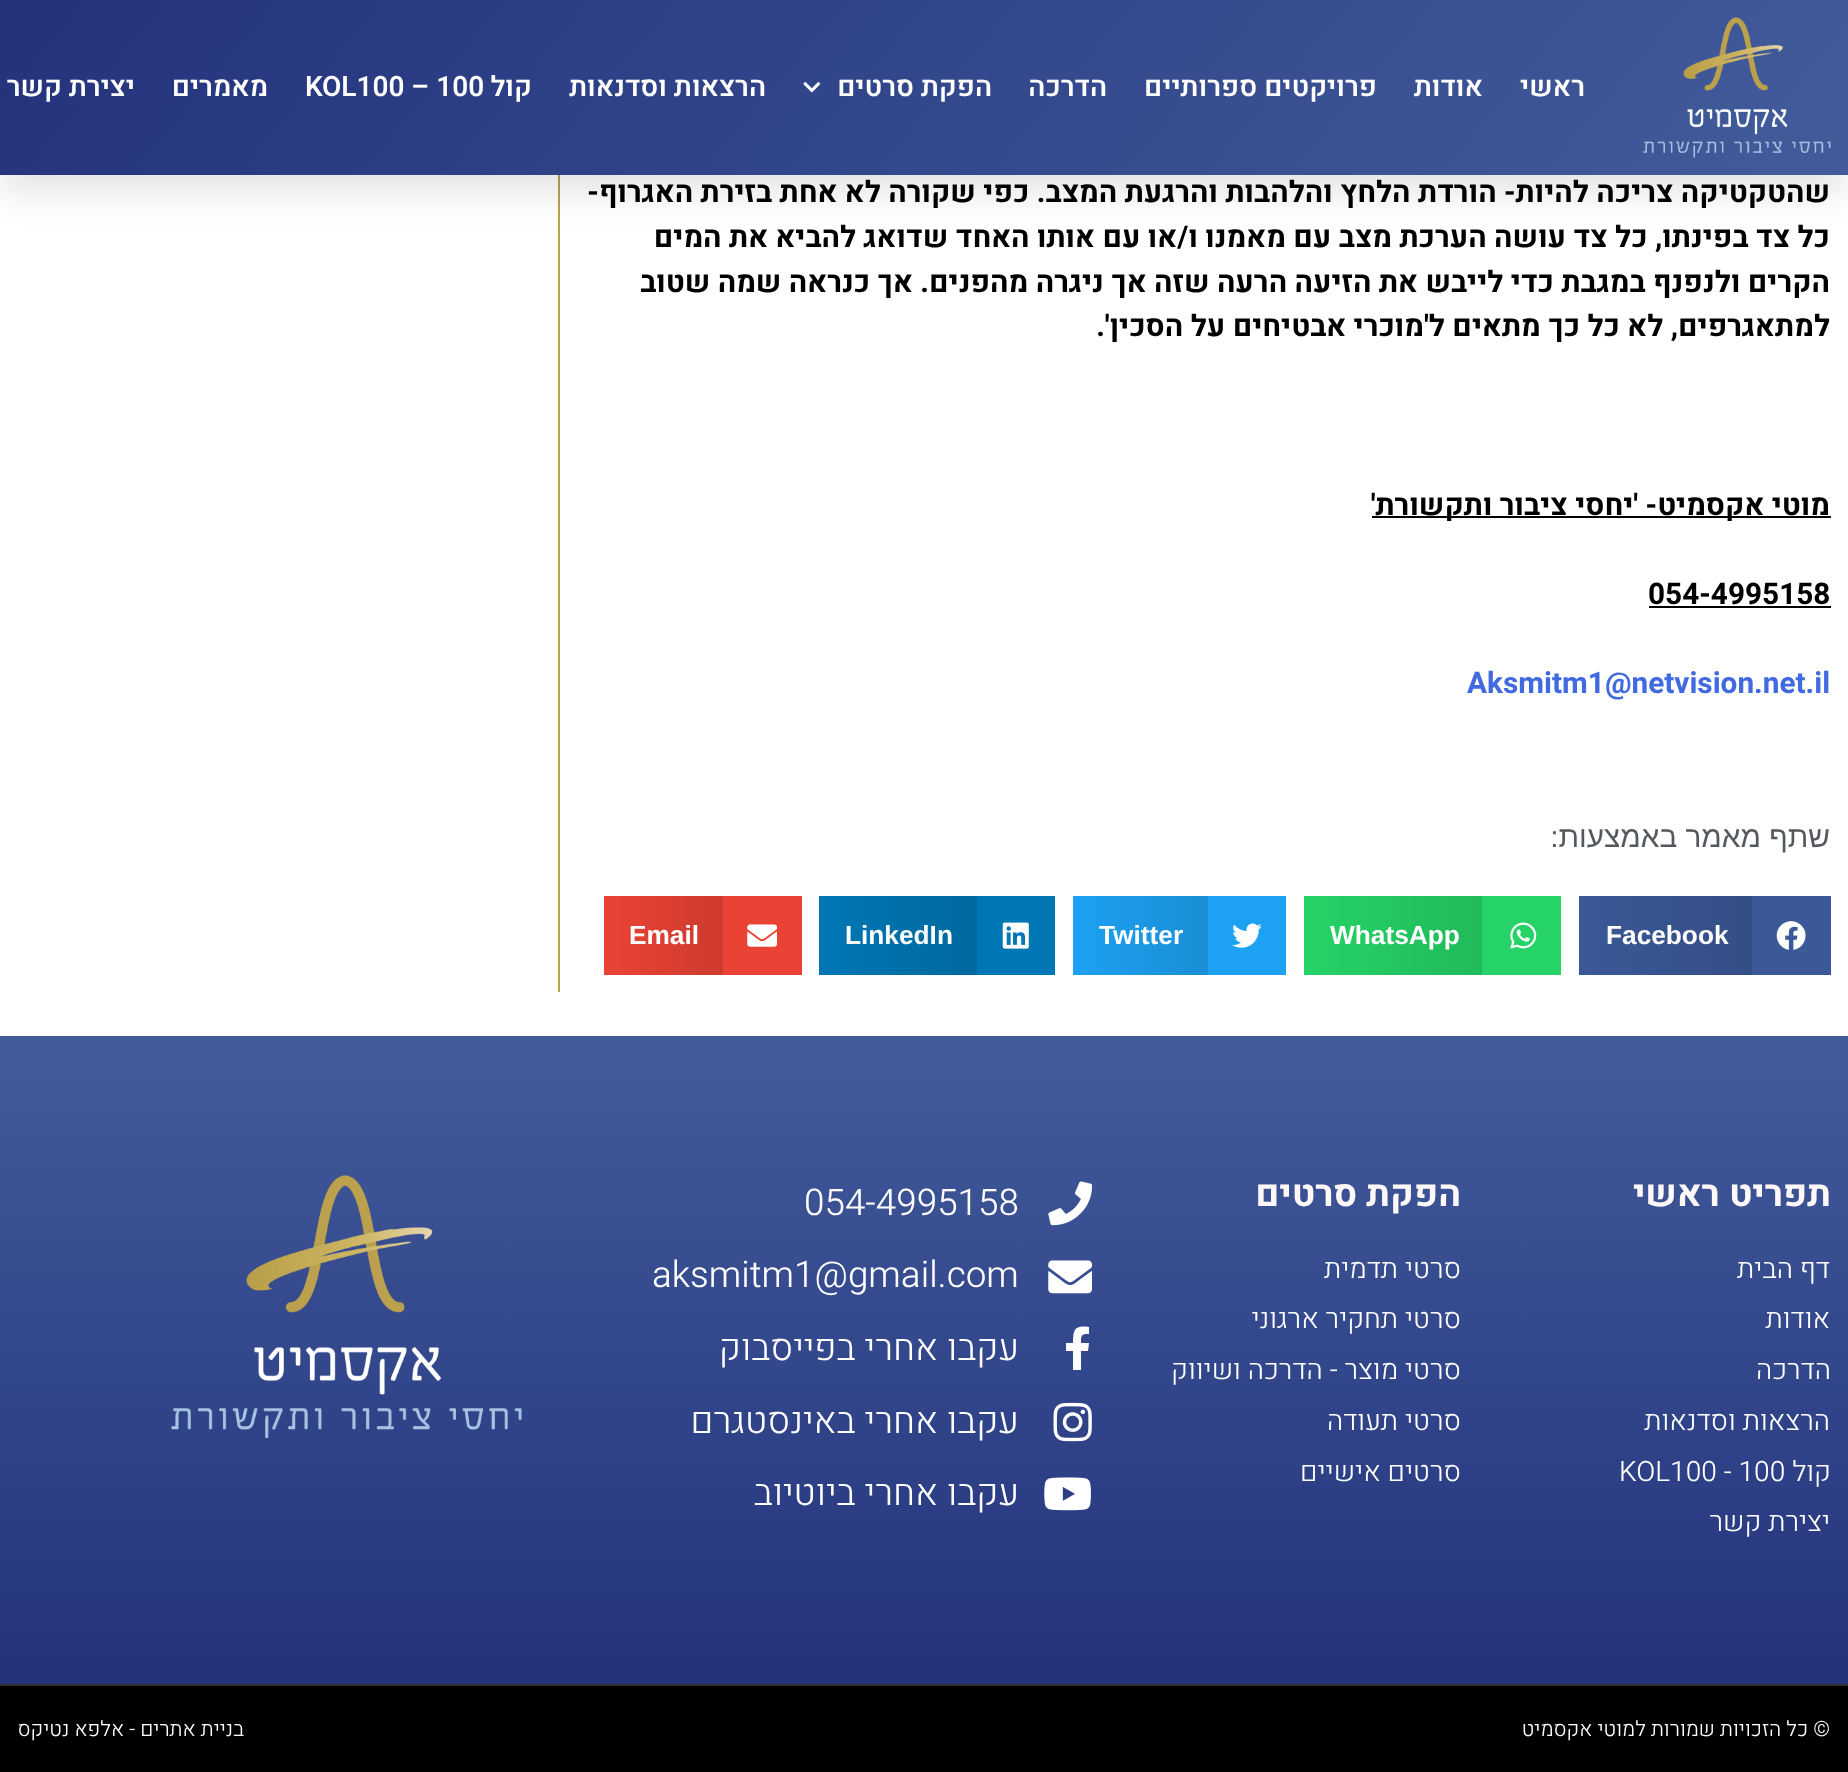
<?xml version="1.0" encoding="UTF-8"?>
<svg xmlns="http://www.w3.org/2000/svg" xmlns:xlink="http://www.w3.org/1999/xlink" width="1848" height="1772">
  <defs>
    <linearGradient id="g1" gradientUnits="userSpaceOnUse" x1="339" y1="-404" x2="1509" y2="579"><stop offset="0" stop-color="#24327c" /><stop offset="1" stop-color="#425c9b" /></linearGradient>
    <linearGradient id="g2" gradientUnits="userSpaceOnUse" x1="1752" y1="935" x2="1579" y2="935"><stop offset="0" stop-color="#344e86" /><stop offset="1" stop-color="#3b5998" /></linearGradient>
    <linearGradient id="g3" gradientUnits="userSpaceOnUse" x1="1482" y1="935" x2="1304" y2="935"><stop offset="0" stop-color="#21ba5a" /><stop offset="1" stop-color="#25d366" /></linearGradient>
    <linearGradient id="g4" gradientUnits="userSpaceOnUse" x1="1208" y1="935" x2="1073" y2="935"><stop offset="0" stop-color="#1a8ed5" /><stop offset="1" stop-color="#1da1f2" /></linearGradient>
    <linearGradient id="g5" gradientUnits="userSpaceOnUse" x1="977" y1="935" x2="819" y2="935"><stop offset="0" stop-color="#00699f" /><stop offset="1" stop-color="#0077b5" /></linearGradient>
    <linearGradient id="g6" gradientUnits="userSpaceOnUse" x1="723" y1="935" x2="604" y2="935"><stop offset="0" stop-color="#ce3b2f" /><stop offset="1" stop-color="#ea4335" /></linearGradient>
    <linearGradient id="g7" gradientUnits="userSpaceOnUse" x1="924" y1="1036" x2="924" y2="1684"><stop offset="0" stop-color="#425c9b" /><stop offset="1" stop-color="#24327c" /></linearGradient>
  </defs>
  <rect width="100%" height="100%" fill="#ffffff" />
  <rect x="558" y="175" width="2" height="817" fill="#bba14d" />
  <rect y="18" width="1848" height="175" fill="#000000" fill-opacity="0.1" filter="blur(17.5px)" />
  <rect width="1848" height="175" fill="url(#g1)" />
  <image x="1643" y="17" width="188" height="141" xlink:href="image1.png" />
  <image x="803" y="82" width="18" height="11" xlink:href="image2.png" />
  <rect x="1372" y="516" width="459" height="2" fill="#000000" />
  <rect x="1649" y="606" width="182" height="2" fill="#000000" />
  <rect x="1752" y="896" width="79" height="79" fill="#3b5998" />
  <image x="1776" y="921" width="30" height="29" xlink:href="image3.png" />
  <rect x="1579" y="896" width="173" height="79" fill="url(#g2)" />
  <rect x="1482" y="896" width="79" height="79" fill="#25d366" />
  <image x="1510" y="922" width="27" height="27" xlink:href="image4.png" />
  <rect x="1304" y="896" width="178" height="79" fill="url(#g3)" />
  <rect x="1208" y="896" width="78" height="79" fill="#1da1f2" />
  <image x="1232" y="923" width="30" height="25" xlink:href="image5.png" />
  <rect x="1073" y="896" width="135" height="79" fill="url(#g4)" />
  <rect x="977" y="896" width="78" height="79" fill="#0077b5" />
  <image x="1002" y="922" width="27" height="27" xlink:href="image6.png" />
  <rect x="819" y="896" width="158" height="79" fill="url(#g5)" />
  <rect x="723" y="896" width="79" height="79" fill="#ea4335" />
  <image x="747" y="924" width="30" height="23" xlink:href="image7.png" />
  <rect x="604" y="896" width="119" height="79" fill="url(#g6)" />
  <rect y="1036" width="1848" height="648" fill="url(#g7)" />
  <image x="1048" y="1181" width="45" height="45" xlink:href="image8.png" />
  <image x="1048" y="1260" width="44" height="34" xlink:href="image9.png" />
  <path d="M 1088 1351 h -7 v 19 h -8 v -19 h -7 v -8 h 7 c 0 -14 2 -18 16 -16 v 7 c -8 0 -8 1 -8 9 h 8 z" fill="#ffffff" />
  <image x="1053" y="1402" width="39" height="40" xlink:href="image10.png" />
  <image x="1044" y="1477" width="47" height="34" xlink:href="image11.png" />
  <image x="171" y="1175" width="351" height="263" xlink:href="image12.png" />
  <rect y="1686" width="1848" height="86" fill="#000000" />
  <rect y="1684" width="1848" height="2" fill="#303030" />
  <text x="1585" y="96" style="font-family: Heebo; font-size: 28px; font-weight: 600; direction: rtl; fill: #ffffff">ראשי</text>
  <text x="1483" y="96" style="font-family: Heebo; font-size: 28px; font-weight: 600; direction: rtl; fill: #ffffff">אודות</text>
  <text x="1377" y="96" style="font-family: Heebo; font-size: 28px; font-weight: 600; direction: rtl; fill: #ffffff">פרויקטים ספרותיים</text>
  <text x="1107" y="96" style="font-family: Heebo; font-size: 28px; font-weight: 600; direction: rtl; fill: #ffffff">הדרכה</text>
  <text x="992" y="96" style="font-family: Heebo; font-size: 28px; font-weight: 600; direction: rtl; fill: #ffffff">הפקת סרטים</text>
  <text x="766" y="96" style="font-family: Heebo; font-size: 28px; font-weight: 600; direction: rtl; fill: #ffffff">הרצאות וסדנאות</text>
  <text x="532" y="96" style="font-family: Heebo; font-size: 28px; font-weight: 600; direction: rtl; fill: #ffffff">קול</text>
  <text x="305" y="96" style="font-family: Heebo; font-size: 28px; font-weight: 600; fill: #ffffff">KOL100 – 100</text>
  <text x="268" y="96" style="font-family: Heebo; font-size: 28px; font-weight: 600; direction: rtl; fill: #ffffff">מאמרים</text>
  <text x="135" y="96" style="font-family: Heebo; font-size: 28px; font-weight: 600; direction: rtl; fill: #ffffff">יצירת קשר</text>
  <text x="1830" y="202" style="font-family: Heebo; font-size: 29.75px; font-weight: bold; direction: rtl; fill: #000000">שהטקטיקה צריכה להיות- הורדת הלחץ והלהבות והרגעת המצב. כפי שקורה לא אחת בזירת האגרוף-</text>
  <text x="1830" y="247" style="font-family: Heebo; font-size: 29.75px; font-weight: bold; direction: rtl; fill: #000000">כל צד בפינתו, כל צד עושה הערכת מצב עם מאמנו ו/או עם אותו האחד שדואג להביא את המים</text>
  <text x="1830" y="292" style="font-family: Heebo; font-size: 29.75px; font-weight: bold; direction: rtl; fill: #000000">הקרים ולנפנף במגבת כדי לייבש את הזיעה הרעה שזה אך ניגרה מהפנים. אך כנראה שמה שטוב</text>
  <text x="1830" y="336" style="font-family: Heebo; font-size: 29.75px; font-weight: bold; direction: rtl; fill: #000000">למתאגרפים, לא כל כך מתאים ל'מוכרי אבטיחים על הסכין'.</text>
  <text x="1830" y="515" style="font-family: Heebo; font-size: 29.75px; font-weight: bold; direction: rtl; fill: #000000">מוטי אקסמיט- 'יחסי ציבור ותקשורת'</text>
  <text x="1648" y="604" style="font-family: Heebo; font-size: 29.75px; font-weight: bold; fill: #000000">054-4995158</text>
  <text x="1467" y="693" style="font-family: Heebo; font-size: 29.75px; font-weight: bold; fill: #4169e1">Aksmitm1@netvision.net.il</text>
  <text x="1830" y="847" style="font-family: Liberation Sans; font-size: 29.75px; direction: rtl; fill: #54595f">שתף מאמר באמצעות:</text>
  <text x="1606" y="944" style="font-family: Liberation Sans; font-size: 26.25px; font-weight: bold; fill: #ffffff">Facebook</text>
  <text x="1330" y="944" style="font-family: Liberation Sans; font-size: 26.25px; font-weight: bold; fill: #ffffff">WhatsApp</text>
  <text x="1099" y="944" style="font-family: Liberation Sans; font-size: 26.25px; font-weight: bold; fill: #ffffff">Twitter</text>
  <text x="845" y="944" style="font-family: Liberation Sans; font-size: 26.25px; font-weight: bold; fill: #ffffff">LinkedIn</text>
  <text x="629" y="944" style="font-family: Liberation Sans; font-size: 26.25px; font-weight: bold; fill: #ffffff">Email</text>
  <text x="1831" y="1206" style="font-family: Heebo; font-size: 36.75px; font-weight: bold; direction: rtl; fill: #fff8f8">תפריט ראשי</text>
  <text x="1830" y="1278" style="font-family: Heebo; font-size: 28px; font-weight: 300; direction: rtl; fill: #ffffff">דף הבית</text>
  <text x="1830" y="1328" style="font-family: Heebo; font-size: 28px; font-weight: 300; direction: rtl; fill: #ffffff">אודות</text>
  <text x="1831" y="1379" style="font-family: Heebo; font-size: 28px; font-weight: 300; direction: rtl; fill: #ffffff">הדרכה</text>
  <text x="1830" y="1430" style="font-family: Heebo; font-size: 28px; font-weight: 300; direction: rtl; fill: #ffffff">הרצאות וסדנאות</text>
  <text x="1831" y="1481" style="font-family: Heebo; font-size: 28px; font-weight: 300; direction: rtl; fill: #ffffff">קול</text>
  <text x="1619" y="1481" style="font-family: Heebo; font-size: 28px; font-weight: 300; fill: #ffffff">KOL100 - 100</text>
  <text x="1830" y="1531" style="font-family: Heebo; font-size: 28px; font-weight: 300; direction: rtl; fill: #ffffff">יצירת קשר</text>
  <text x="1461" y="1206" style="font-family: Heebo; font-size: 36.75px; font-weight: bold; direction: rtl; fill: #fff8f8">הפקת סרטים</text>
  <text x="1461" y="1278" style="font-family: Heebo; font-size: 28px; font-weight: 300; direction: rtl; fill: #ffffff">סרטי תדמית</text>
  <text x="1461" y="1328" style="font-family: Heebo; font-size: 28px; font-weight: 300; direction: rtl; fill: #ffffff">סרטי תחקיר ארגוני</text>
  <text x="1461" y="1379" style="font-family: Heebo; font-size: 28px; font-weight: 300; direction: rtl; fill: #ffffff">סרטי מוצר - הדרכה ושיווק</text>
  <text x="1461" y="1430" style="font-family: Heebo; font-size: 28px; font-weight: 300; direction: rtl; fill: #ffffff">סרטי תעודה</text>
  <text x="1461" y="1481" style="font-family: Heebo; font-size: 28px; font-weight: 300; direction: rtl; fill: #ffffff">סרטים אישיים</text>
  <text x="804" y="1215" style="font-family: Heebo; font-size: 36.75px; font-weight: 300; fill: #ffffff">054-4995158</text>
  <text x="652" y="1287" style="font-family: Heebo; font-size: 36.75px; font-weight: 300; fill: #ffffff">aksmitm1@gmail.com</text>
  <text x="1019" y="1360" style="font-family: Heebo; font-size: 36.75px; font-weight: 300; direction: rtl; fill: #ffffff">עקבו אחרי בפייסבוק</text>
  <text x="1019" y="1433" style="font-family: Heebo; font-size: 36.75px; font-weight: 300; direction: rtl; fill: #ffffff">עקבו אחרי באינסטגרם</text>
  <text x="1019" y="1505" style="font-family: Heebo; font-size: 36.75px; font-weight: 300; direction: rtl; fill: #ffffff">עקבו אחרי ביוטיוב</text>
  <text x="1830" y="1736" style="font-family: Heebo; font-size: 21px; font-weight: 300; direction: rtl; fill: #ffffff">© כל הזכויות שמורות למוטי אקסמיט</text>
  <text x="244" y="1736" style="font-family: Heebo; font-size: 21px; font-weight: 300; direction: rtl; fill: #ffffff">בניית אתרים - אלפא נטיקס</text>
</svg>
